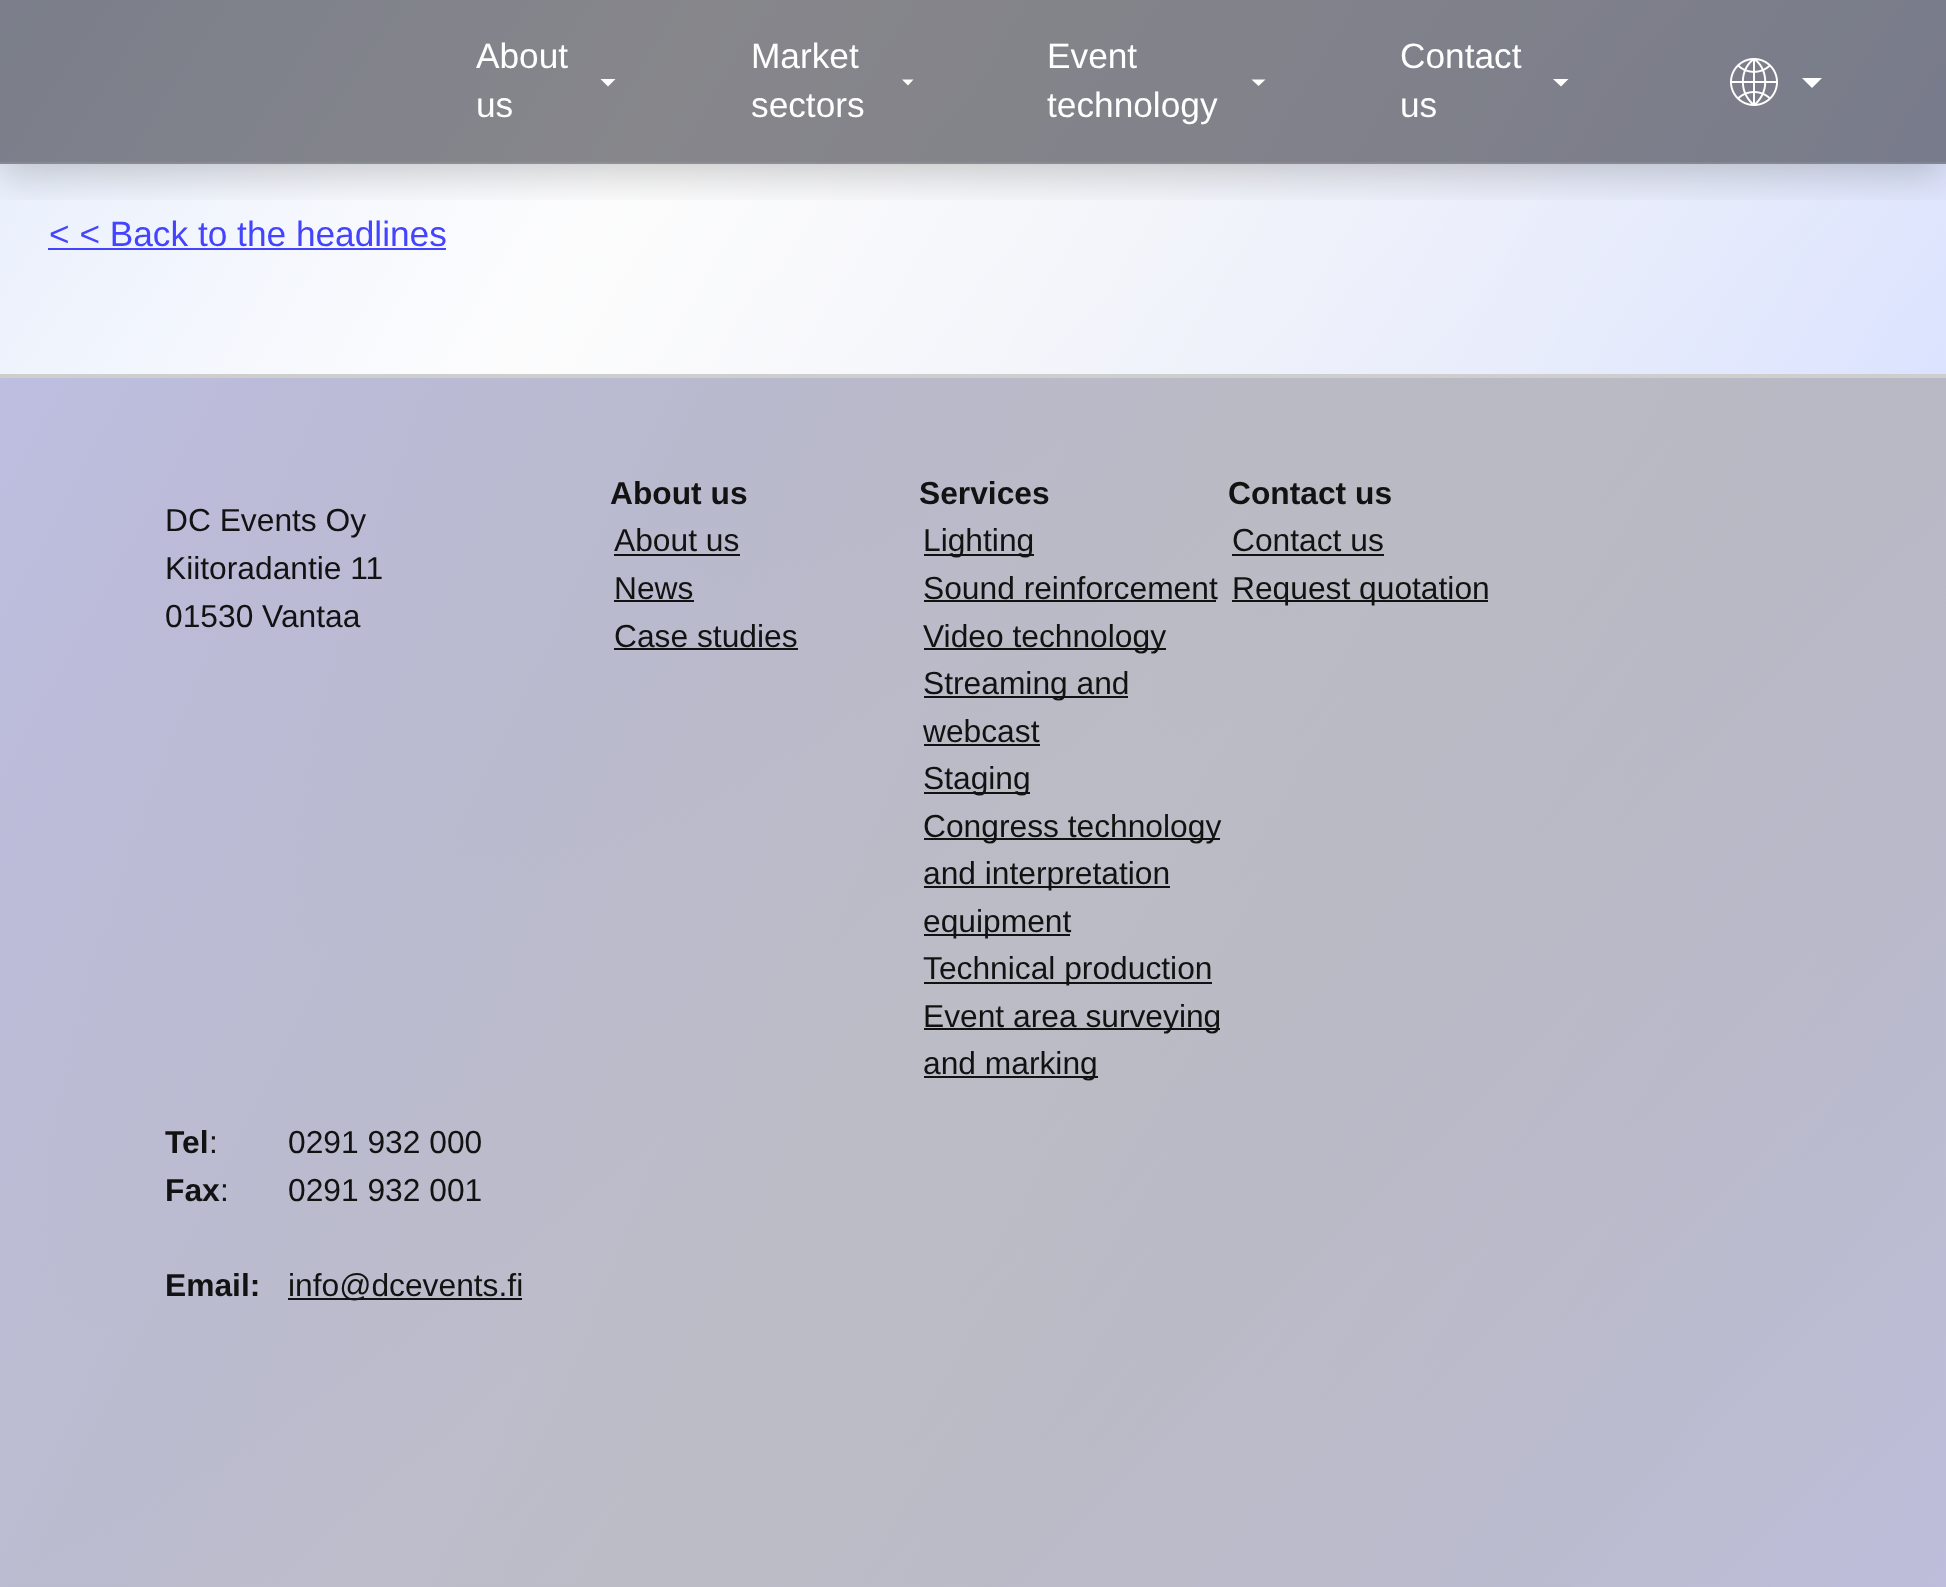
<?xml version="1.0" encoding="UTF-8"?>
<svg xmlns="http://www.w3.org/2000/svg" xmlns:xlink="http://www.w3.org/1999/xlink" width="1946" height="1587">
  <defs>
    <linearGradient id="g1" gradientUnits="userSpaceOnUse" x1="-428" y1="-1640" x2="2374" y2="1161"><stop offset="0" stop-color="#0a0a12" /><stop offset="1" stop-color="#151530" /></linearGradient>
    <linearGradient id="g2" gradientUnits="userSpaceOnUse" x1="75" y1="-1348" x2="1872" y2="448"><stop offset="0" stop-color="#ffffff" stop-opacity="0.2" /><stop offset="0.5" stop-color="#ffffff" stop-opacity="0.9" /><stop offset="1" stop-color="#d2dcff" /></linearGradient>
    <linearGradient id="g3" gradientUnits="userSpaceOnUse" x1="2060" y1="177" x2="-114" y2="-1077"><stop offset="0" stop-color="#ffffff" stop-opacity="0.2" /><stop offset="0.5" stop-color="#ffffff" stop-opacity="0.9" /><stop offset="1" stop-color="#d2e1ff" /></linearGradient>
    <clipPath id="clip1"><rect x="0" y="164" width="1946" height="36" /></clipPath>
    <linearGradient id="g4" gradientUnits="userSpaceOnUse" x1="184" y1="194" x2="1762" y2="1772"><stop offset="0" stop-color="#bebec8" stop-opacity="0.2" /><stop offset="0.5" stop-color="#bebec8" stop-opacity="0.9" /><stop offset="1" stop-color="#bebee1" /></linearGradient>
    <linearGradient id="g5" gradientUnits="userSpaceOnUse" x1="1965" y1="1556" x2="-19" y2="410"><stop offset="0" stop-color="#bebec8" stop-opacity="0.2" /><stop offset="0.5" stop-color="#bebec8" stop-opacity="0.9" /><stop offset="1" stop-color="#bebee1" /></linearGradient>
  </defs>
  <rect width="100%" height="100%" fill="#ffffff" />
  <rect width="1946" height="1587" fill="url(#g1)" />
  <rect width="1946" height="374" fill="url(#g2)" />
  <rect width="1946" height="374" fill="url(#g3)" />
  <g clip-path="url(#clip1)">
    <rect y="10" width="1946" height="164" fill="#000000" fill-opacity="0.2" filter="blur(20px)" />
  </g>
  <rect width="1946" height="164" fill="#10101a" fill-opacity="0.5" />
  <rect y="162" width="1946" height="2" fill="#ffffff" fill-opacity="0.08" />
  <path d="M 600.5 79 l 7.5 7.5 l 7.5 -7.5 z" fill="#ffffff" />
  <path d="M 902 79.5 l 6 6 l 5.5 -6 z" fill="#ffffff" />
  <path d="M 1251.5 79.5 l 7 6.5 l 7 -6.5 z" fill="#ffffff" />
  <path d="M 1553 79 l 8 7.5 l 7.5 -7.5 z" fill="#ffffff" />
  <image x="1730" y="58" width="48" height="48" xlink:href="image1.png" />
  <path d="M 1802 78 l 10 10 l 10 -10 z" fill="#ffffff" />
  <rect x="48" y="248" width="398" height="2" fill="#4444ff" />
  <rect y="378" width="1946" height="1209" fill="url(#g4)" />
  <rect y="378" width="1946" height="1209" fill="url(#g5)" />
  <rect y="374" width="1946" height="4" fill="#cecece" />
  <rect x="614" y="554" width="126" height="2" fill="#121212" />
  <rect x="614" y="600" width="80" height="2" fill="#121212" />
  <rect x="614" y="648" width="184" height="2" fill="#121212" />
  <rect x="924" y="554" width="110" height="2" fill="#121212" />
  <rect x="924" y="600" width="292" height="2" fill="#121212" />
  <rect x="924" y="648" width="242" height="2" fill="#121212" />
  <rect x="924" y="696" width="204" height="2" fill="#121212" />
  <rect x="924" y="744" width="116" height="2" fill="#121212" />
  <rect x="924" y="792" width="106" height="2" fill="#121212" />
  <rect x="924" y="838" width="296" height="2" fill="#121212" />
  <rect x="924" y="886" width="246" height="2" fill="#121212" />
  <rect x="924" y="934" width="146" height="2" fill="#121212" />
  <rect x="924" y="982" width="288" height="2" fill="#121212" />
  <rect x="924" y="1028" width="296" height="2" fill="#121212" />
  <rect x="924" y="1076" width="174" height="2" fill="#121212" />
  <rect x="1232" y="554" width="152" height="2" fill="#121212" />
  <rect x="1232" y="600" width="256" height="2" fill="#121212" />
  <rect x="288" y="1298" width="234" height="2" fill="#121212" />
  <text x="476" y="68" style="font-family: Liberation Sans; font-size: 35.25px; fill: #ffffff">About</text>
  <text x="476" y="117" style="font-family: Liberation Sans; font-size: 35.25px; fill: #ffffff">us</text>
  <text x="751" y="68" style="font-family: Liberation Sans; font-size: 35.25px; fill: #ffffff">Market</text>
  <text x="751" y="117" style="font-family: Liberation Sans; font-size: 35.25px; fill: #ffffff">sectors</text>
  <text x="1047" y="68" style="font-family: Liberation Sans; font-size: 35.25px; fill: #ffffff">Event</text>
  <text x="1047" y="117" style="font-family: Liberation Sans; font-size: 35.25px; fill: #ffffff">technology</text>
  <text x="1400" y="68" style="font-family: Liberation Sans; font-size: 35.25px; fill: #ffffff">Contact</text>
  <text x="1400" y="117" style="font-family: Liberation Sans; font-size: 35.25px; fill: #ffffff">us</text>
  <text x="49" y="246" style="font-family: Liberation Sans; font-size: 35.25px; fill: #4444ff">&lt; &lt; Back to the headlines</text>
  <text x="165" y="531" style="font-family: Liberation Sans; font-size: 31.75px; fill: #121212">DC Events Oy</text>
  <text x="165" y="579" style="font-family: Liberation Sans; font-size: 31.75px; fill: #121212">Kiitoradantie 11</text>
  <text x="165" y="627" style="font-family: Liberation Sans; font-size: 31.75px; fill: #121212">01530 Vantaa</text>
  <text x="610" y="504" style="font-family: Liberation Sans; font-size: 31.75px; font-weight: bold; fill: #121212">About us</text>
  <text x="614" y="551" style="font-family: Liberation Sans; font-size: 31.75px; fill: #121212">About us</text>
  <text x="614" y="599" style="font-family: Liberation Sans; font-size: 31.75px; fill: #121212">News</text>
  <text x="614" y="647" style="font-family: Liberation Sans; font-size: 31.75px; fill: #121212">Case studies</text>
  <text x="919" y="504" style="font-family: Liberation Sans; font-size: 31.75px; font-weight: bold; fill: #121212">Services</text>
  <text x="923" y="551" style="font-family: Liberation Sans; font-size: 31.75px; fill: #121212">Lighting</text>
  <text x="923" y="599" style="font-family: Liberation Sans; font-size: 31.75px; fill: #121212">Sound reinforcement</text>
  <text x="923" y="647" style="font-family: Liberation Sans; font-size: 31.75px; fill: #121212">Video technology</text>
  <text x="923" y="694" style="font-family: Liberation Sans; font-size: 31.75px; fill: #121212">Streaming and</text>
  <text x="923" y="742" style="font-family: Liberation Sans; font-size: 31.75px; fill: #121212">webcast</text>
  <text x="923" y="789" style="font-family: Liberation Sans; font-size: 31.75px; fill: #121212">Staging</text>
  <text x="923" y="837" style="font-family: Liberation Sans; font-size: 31.75px; fill: #121212">Congress technology</text>
  <text x="923" y="884" style="font-family: Liberation Sans; font-size: 31.75px; fill: #121212">and interpretation</text>
  <text x="923" y="932" style="font-family: Liberation Sans; font-size: 31.75px; fill: #121212">equipment</text>
  <text x="923" y="979" style="font-family: Liberation Sans; font-size: 31.75px; fill: #121212">Technical production</text>
  <text x="923" y="1027" style="font-family: Liberation Sans; font-size: 31.75px; fill: #121212">Event area surveying</text>
  <text x="923" y="1074" style="font-family: Liberation Sans; font-size: 31.75px; fill: #121212">and marking</text>
  <text x="1228" y="504" style="font-family: Liberation Sans; font-size: 31.75px; font-weight: bold; fill: #121212">Contact us</text>
  <text x="1232" y="551" style="font-family: Liberation Sans; font-size: 31.75px; fill: #121212">Contact us</text>
  <text x="1232" y="599" style="font-family: Liberation Sans; font-size: 31.75px; fill: #121212">Request quotation</text>
  <text x="165" y="1153" style="font-family: Liberation Sans; font-size: 31.75px; font-weight: bold; fill: #121212">Tel</text>
  <text x="209" y="1153" style="font-family: Liberation Sans; font-size: 31.75px; fill: #121212">:</text>
  <text x="288" y="1153" style="font-family: Liberation Sans; font-size: 31.75px; fill: #121212">0291 932 000</text>
  <text x="165" y="1201" style="font-family: Liberation Sans; font-size: 31.75px; font-weight: bold; fill: #121212">Fax</text>
  <text x="220" y="1201" style="font-family: Liberation Sans; font-size: 31.75px; fill: #121212">:</text>
  <text x="288" y="1201" style="font-family: Liberation Sans; font-size: 31.75px; fill: #121212">0291 932 001</text>
  <text x="165" y="1296" style="font-family: Liberation Sans; font-size: 31.75px; font-weight: bold; fill: #121212">Email:</text>
  <text x="288" y="1296" style="font-family: Liberation Sans; font-size: 31.75px; fill: #121212">info@dcevents.fi</text>
</svg>
